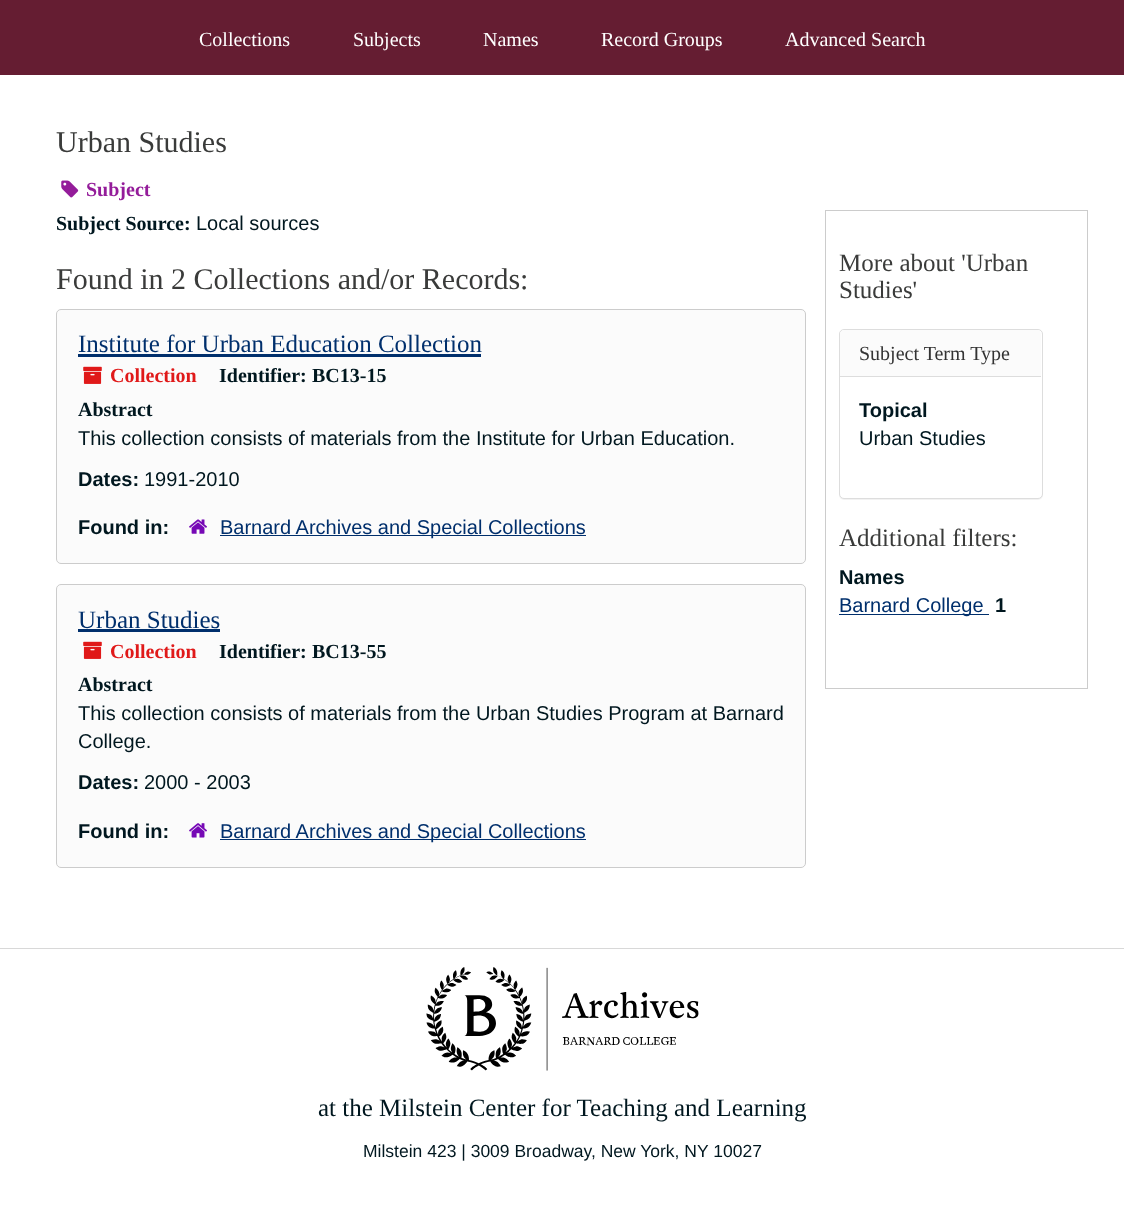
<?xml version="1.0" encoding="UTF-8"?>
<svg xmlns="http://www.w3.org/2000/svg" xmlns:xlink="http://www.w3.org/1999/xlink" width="1124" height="1214">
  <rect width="100%" height="100%" fill="#ffffff" />
  <rect width="1124" height="75" fill="#651d32" />
  <image x="61" y="180" width="18" height="18" xlink:href="image1.png" />
  <rect x="56.5" y="309.5" width="749" height="254" rx="4.5" fill="#fbfbfb" stroke="#cccccc" />
  <rect x="78" y="354" width="403" height="3" fill="#002f6c" />
  <image x="83" y="366" width="19" height="18" xlink:href="image2.png" />
  <image x="189" y="519" width="18" height="15" xlink:href="image3.png" />
  <rect x="220" y="535" width="366" height="1" fill="#002f6c" />
  <rect x="56.5" y="584.5" width="749" height="283" rx="4.5" fill="#fbfbfb" stroke="#cccccc" />
  <rect x="78" y="629" width="142" height="3" fill="#002f6c" />
  <image x="83" y="641" width="19" height="18" xlink:href="image2.png" />
  <image x="189" y="823" width="18" height="15" xlink:href="image4.png" />
  <rect x="220" y="839" width="366" height="1" fill="#002f6c" />
  <rect x="825.5" y="210.5" width="262" height="478" fill="none" stroke="#cccccc" />
  <rect x="839" y="330" width="204" height="170" rx="5" fill="#000000" fill-opacity="0.05" filter="blur(0.5px)" />
  <rect x="839.5" y="329.5" width="203" height="169" rx="4.5" fill="#ffffff" stroke="#dddddd" />
  <path d="M 844 330 h 193 c 2 0 4 2 4 4 v 42 h -201 v -42 c 0 -2 2 -4 4 -4 z" fill="#fbfbfb" />
  <rect x="840" y="376" width="201" height="1" fill="#dddddd" />
  <rect x="839" y="614" width="150" height="1" fill="#002f6c" />
  <rect y="948" width="1124" height="1" fill="#d8d8d8" />
  <image x="426" y="967" width="273" height="104" xlink:href="image5.png" />
  <text x="199" y="46" style="font-family: Liberation Serif; font-size: 20px; fill: #ffffff">Collections</text>
  <text x="353" y="46" style="font-family: Liberation Serif; font-size: 20px; fill: #ffffff">Subjects</text>
  <text x="483" y="46" style="font-family: Liberation Serif; font-size: 20px; fill: #ffffff">Names</text>
  <text x="601" y="46" style="font-family: Liberation Serif; font-size: 20px; fill: #ffffff">Record Groups</text>
  <text x="785" y="46" style="font-family: Liberation Serif; font-size: 20px; fill: #ffffff">Advanced Search</text>
  <text x="56" y="152" style="font-family: Liberation Serif; font-size: 30px; fill: #3a3b3a">Urban Studies</text>
  <text x="86" y="196" style="font-family: Liberation Serif; font-size: 20px; font-weight: bold; fill: #941c9a">Subject</text>
  <text x="56" y="230" style="font-family: Liberation Serif; font-size: 20px; font-weight: bold; fill: #00171f">Subject Source:</text>
  <text x="196" y="230" style="font-family: Liberation Sans; font-size: 20px; fill: #00171f">Local sources</text>
  <text x="56" y="289" style="font-family: Liberation Serif; font-size: 30px; fill: #3a3b3a">Found in 2 Collections and/or Records:</text>
  <text x="78" y="352" style="font-family: Liberation Serif; font-size: 25px; fill: #002f6c">Institute for Urban Education Collection</text>
  <text x="110" y="382" style="font-family: Liberation Serif; font-size: 20px; font-weight: bold; fill: #e01919">Collection</text>
  <text x="219" y="382" style="font-family: Liberation Serif; font-size: 20px; font-weight: bold; fill: #00171f">Identifier:</text>
  <text x="312" y="382" style="font-family: Liberation Serif; font-size: 20px; font-weight: bold; fill: #00171f">BC13-15</text>
  <text x="78" y="416" style="font-family: Liberation Serif; font-size: 20px; font-weight: bold; fill: #00171f">Abstract</text>
  <text x="78" y="445" style="font-family: Liberation Sans; font-size: 20px; fill: #00171f">This collection consists of materials from the Institute for Urban Education.</text>
  <text x="78" y="486" style="font-family: Liberation Sans; font-size: 20px; font-weight: bold; fill: #00171f">Dates:</text>
  <text x="144" y="486" style="font-family: Liberation Sans; font-size: 20px; fill: #00171f">1991-2010</text>
  <text x="78" y="534" style="font-family: Liberation Sans; font-size: 20px; font-weight: bold; fill: #00171f">Found in:</text>
  <text x="220" y="534" style="font-family: Liberation Sans; font-size: 20px; fill: #002f6c">Barnard Archives and Special Collections</text>
  <text x="78" y="628" style="font-family: Liberation Serif; font-size: 25px; fill: #002f6c">Urban Studies</text>
  <text x="110" y="658" style="font-family: Liberation Serif; font-size: 20px; font-weight: bold; fill: #e01919">Collection</text>
  <text x="219" y="658" style="font-family: Liberation Serif; font-size: 20px; font-weight: bold; fill: #00171f">Identifier:</text>
  <text x="312" y="658" style="font-family: Liberation Serif; font-size: 20px; font-weight: bold; fill: #00171f">BC13-55</text>
  <text x="78" y="691" style="font-family: Liberation Serif; font-size: 20px; font-weight: bold; fill: #00171f">Abstract</text>
  <text x="78" y="720" style="font-family: Liberation Sans; font-size: 20px; fill: #00171f">This collection consists of materials from the Urban Studies Program at Barnard</text>
  <text x="78" y="748" style="font-family: Liberation Sans; font-size: 20px; fill: #00171f">College.</text>
  <text x="78" y="789" style="font-family: Liberation Sans; font-size: 20px; font-weight: bold; fill: #00171f">Dates:</text>
  <text x="144" y="789" style="font-family: Liberation Sans; font-size: 20px; fill: #00171f">2000 - 2003</text>
  <text x="78" y="838" style="font-family: Liberation Sans; font-size: 20px; font-weight: bold; fill: #00171f">Found in:</text>
  <text x="220" y="838" style="font-family: Liberation Sans; font-size: 20px; fill: #002f6c">Barnard Archives and Special Collections</text>
  <text x="839" y="271" style="font-family: Liberation Serif; font-size: 25px; fill: #3a3b3a">More about 'Urban</text>
  <text x="839" y="298" style="font-family: Liberation Serif; font-size: 25px; fill: #3a3b3a">Studies'</text>
  <text x="859" y="360" style="font-family: Liberation Serif; font-size: 20px; fill: #333333">Subject Term Type</text>
  <text x="859" y="417" style="font-family: Liberation Sans; font-size: 20px; font-weight: bold; fill: #00171f">Topical</text>
  <text x="859" y="445" style="font-family: Liberation Sans; font-size: 20px; fill: #00171f">Urban Studies</text>
  <text x="839" y="546" style="font-family: Liberation Serif; font-size: 25px; fill: #3a3b3a">Additional filters:</text>
  <text x="839" y="584" style="font-family: Liberation Sans; font-size: 20px; font-weight: bold; fill: #00171f">Names</text>
  <text x="839" y="612" style="font-family: Liberation Sans; font-size: 20px; fill: #002f6c">Barnard College</text>
  <text x="995" y="612" style="font-family: Liberation Sans; font-size: 20px; font-weight: bold; fill: #00171f">1</text>
  <text x="318" y="1116" style="font-family: Liberation Serif; font-size: 25px; fill: #00171f">at the Milstein Center for Teaching and Learning</text>
  <text x="363" y="1157" style="font-family: Liberation Sans; font-size: 17.5px; fill: #00171f">Milstein 423 | 3009 Broadway, New York, NY 10027</text>
</svg>
